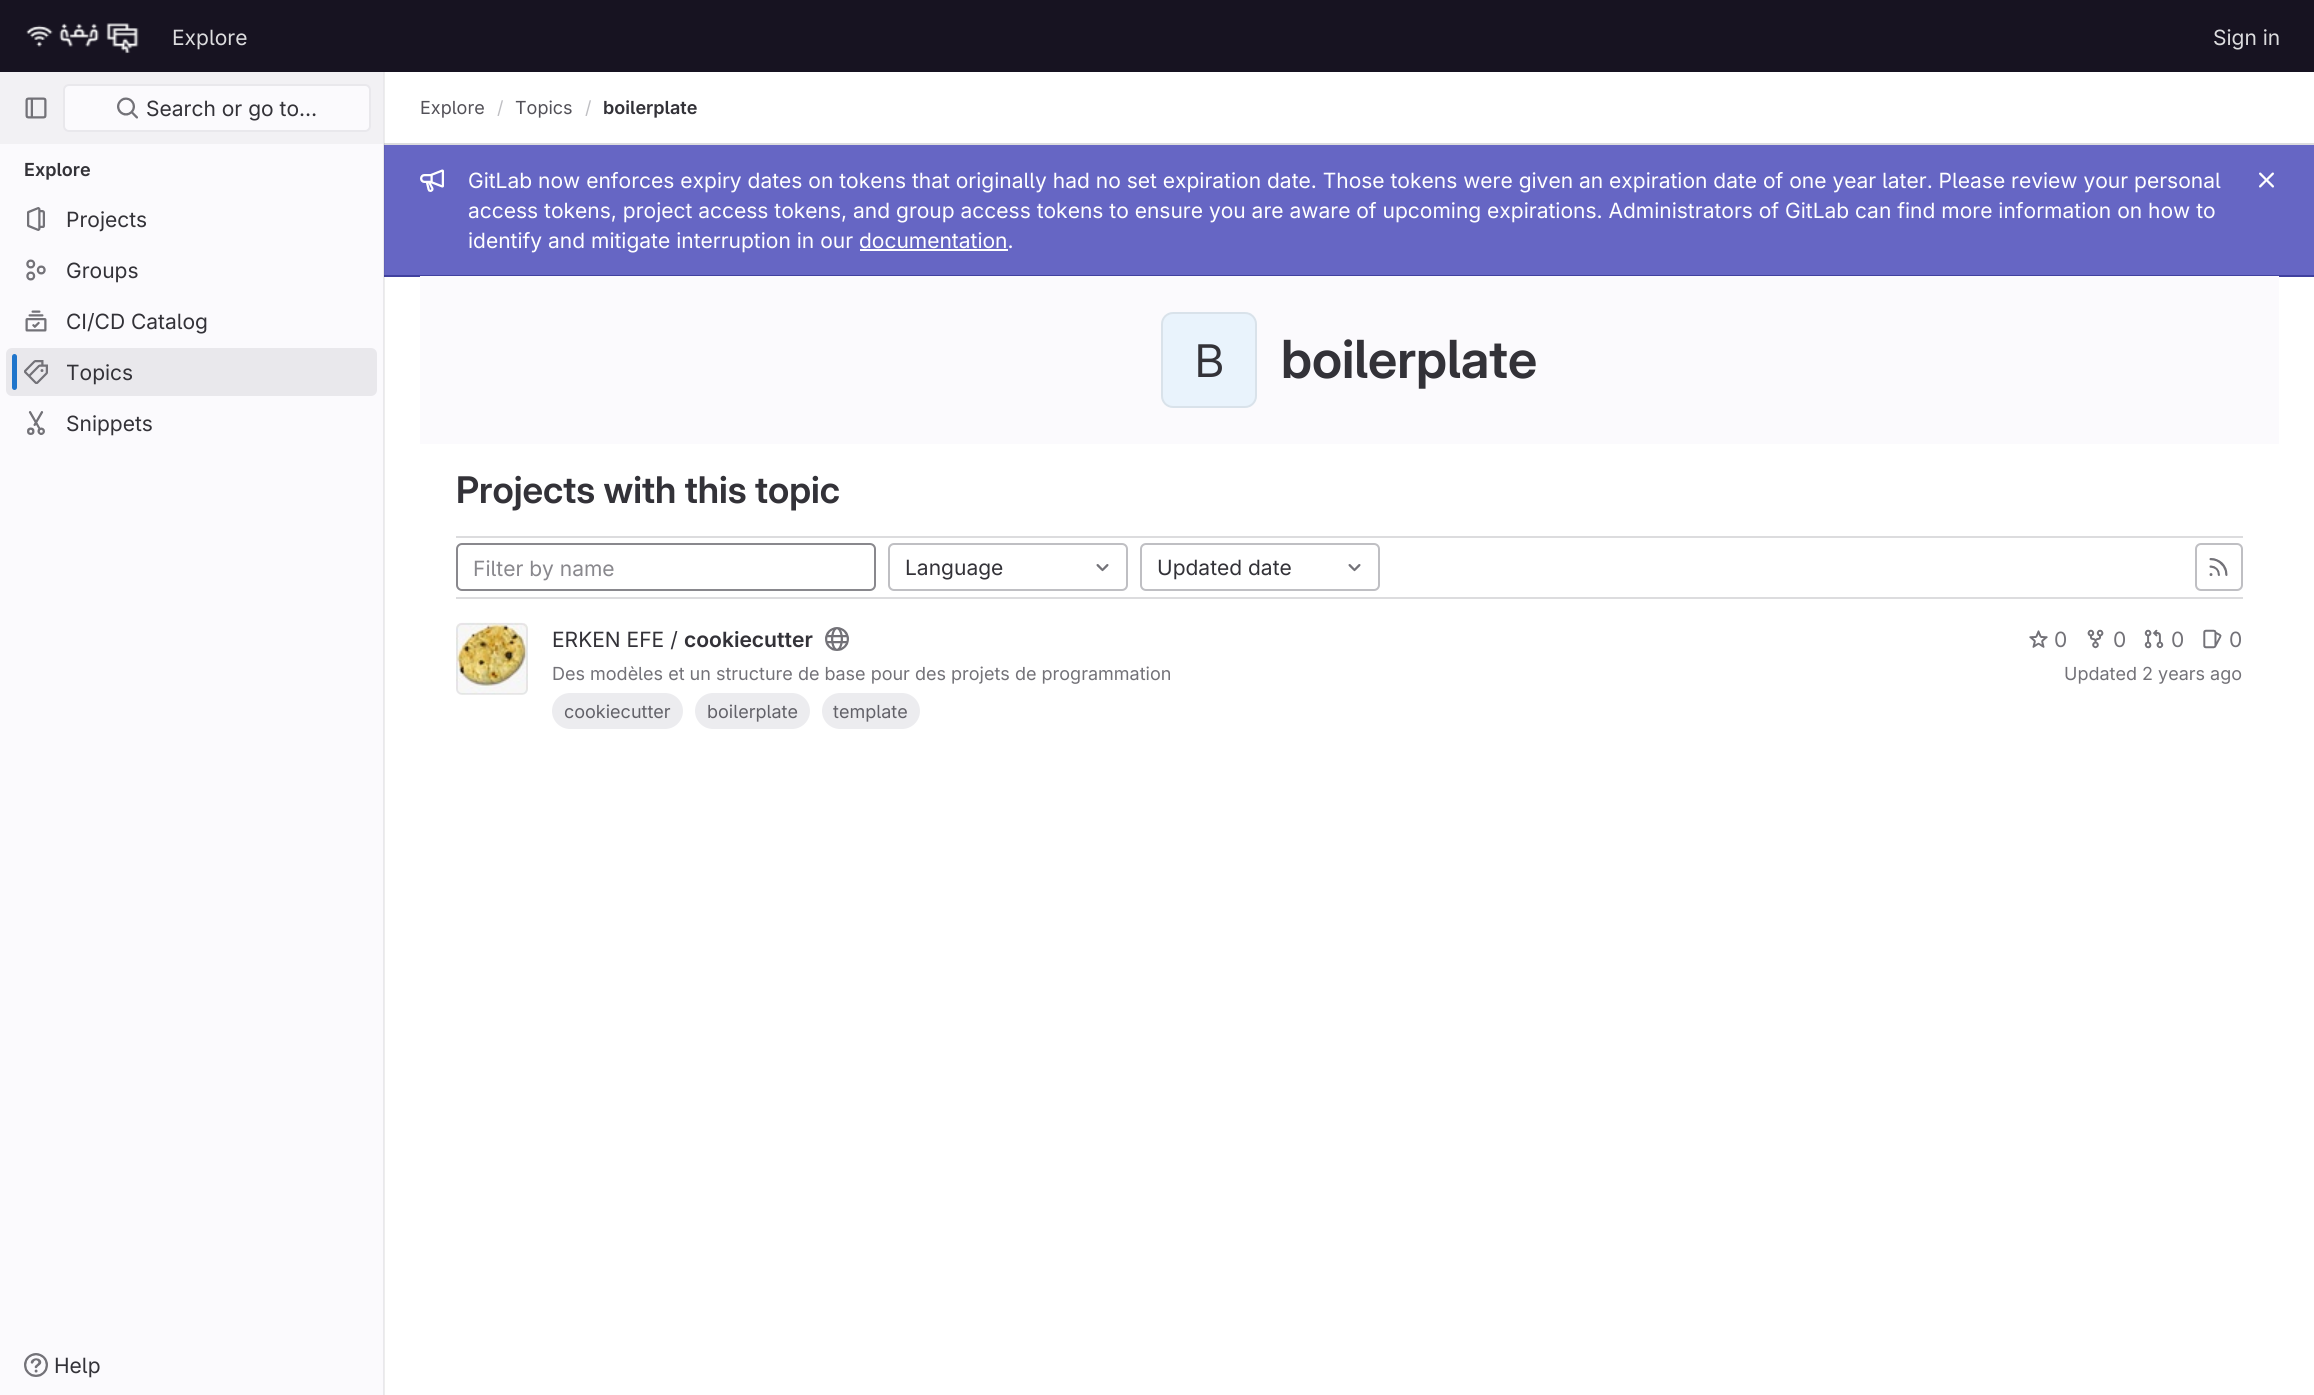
import math
import cairocffi as cairo

surface = cairo.ImageSurface(cairo.FORMAT_RGB24, 2314, 1395)
ctx = cairo.Context(surface)
options = cairo.FontOptions()
options.set_hint_metrics(cairo.HINT_METRICS_OFF)
options.set_hint_style(cairo.HINT_STYLE_NONE)
ctx.set_font_options(options)
ctx.set_miter_limit(4)


def rgb(r, g, b):
    ctx.set_source_rgb(r / 255, g / 255, b / 255)


def face(family, size, italic, bold):
    ctx.select_font_face(family, cairo.FONT_SLANT_ITALIC if italic else cairo.FONT_SLANT_NORMAL, cairo.FONT_WEIGHT_BOLD if bold else cairo.FONT_WEIGHT_NORMAL)
    ctx.set_font_size(size)


def label(x, y, s):
    ctx.move_to(x, y)
    ctx.show_text(s)


def rect(x, y, w, h):
    ctx.rectangle(x, y, w, h)
    ctx.fill()


def rrect(x, y, w, h, r):
    ctx.new_sub_path()
    for i, (u, v) in enumerate([(x + w - r, y + h - r), (x + r, y + h - r), (x + r, y + r), (x + w - r, y + r)]):
        ctx.arc(u, v, r, i * math.pi / 2, (i + 1) * math.pi / 2)
    ctx.close_path()


def image(path, x, y, w, h):
    ctx.save()
    ctx.set_source_surface(cairo.ImageSurface.create_from_png(path), x, y)
    ctx.rectangle(x, y, w, h)
    ctx.fill()
    ctx.restore()


rgb(255, 255, 255)
ctx.paint()
rgb(237, 237, 237)
rect(384, 72, 1, 1323)
rgb(23, 19, 33)
rect(0, 0, 2314, 72)
image('image0.png', 26, 23, 113, 31)
face('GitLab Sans', 21, 0, 0)
rgb(220, 220, 222)
label(172, 45, 'Explore')
label(2213, 45, 'Sign in')
rgb(251, 250, 253)
rect(0, 144, 383, 1251)
rgb(233, 232, 236)
rect(383, 72, 1, 1323)
rgb(242, 241, 244)
rect(0, 72, 383, 72)
image('image1.png', 25, 97, 22, 22)
rgb(251, 250, 253)
rrect(64, 85, 306, 46, 5)
ctx.fill_preserve()
rgb(233, 232, 236)
ctx.stroke()
image('image2.png', 117, 97, 21, 22)
rgb(51, 50, 56)
label(146, 116, 'Search or go to…')
face('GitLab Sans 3 SemiBold', 18, 0, 0)
label(24, 176, 'Explore')
image('image3.png', 27, 207, 18, 24)
face('GitLab Sans', 21, 0, 0)
label(66, 227, 'Projects')
image('image4.png', 26, 259, 20, 22)
label(66, 278, 'Groups')
image('image5.png', 25, 310, 22, 22)
label(66, 329, 'CI/CD Catalog')
rgb(233, 232, 236)
rrect(6, 348, 371, 48, 6)
ctx.fill()
rgb(31, 117, 203)
rrect(12, 354, 5, 36, 2.5)
ctx.fill()
image('image6.png', 24, 360, 24, 24)
rgb(51, 50, 56)
label(66, 380, 'Topics')
image('image7.png', 27, 411, 18, 24)
label(66, 431, 'Snippets')
image('image8.png', 24, 1353, 24, 24)
label(54, 1373, 'Help')
rgb(96, 96, 183)
rect(384, 144, 1, 132)
rgb(220, 220, 222)
rect(384, 143, 1930, 2)
rgb(205, 205, 207)
rect(384, 143, 1, 2)
face('GitLab Sans', 18, 0, 0)
rgb(83, 81, 88)
label(420, 114, 'Explore')
rgb(191, 191, 195)
label(497, 114, '/')
rgb(83, 81, 88)
label(515, 114, 'Topics')
rgb(191, 191, 195)
label(585, 114, '/')
face('GitLab Sans 3 SemiBold', 18, 0, 0)
rgb(51, 50, 56)
label(603, 114, 'boilerplate')
rgb(102, 102, 196)
rect(385, 145, 1929, 130)
rgb(65, 65, 159)
rect(384, 275, 1930, 2)
rgb(62, 62, 149)
rect(384, 275, 1, 2)
image('image9.png', 420, 169, 24, 23)
face('GitLab Sans', 21, 0, 0)
rgb(255, 255, 255)
label(468, 188, 'GitLab now enforces expiry dates on tokens that originally had no set expiration date. Those tokens were given an expiration date of one year later. Please review your personal')
label(468, 218, 'access tokens, project access tokens, and group access tokens to ensure you are aware of upcoming expirations. Administrators of GitLab can find more information on how to')
label(468, 248, 'identify and mitigate interruption in our documentation.')
rect(860, 249, 148, 2)
image('image10.png', 2259, 172, 15, 16)
rgb(251, 250, 253)
rect(420, 276, 1859, 168)
rgb(233, 243, 252)
rrect(1161, 312, 96, 96, 12)
ctx.fill()
rrect(1162, 313, 94, 94, 11)
ctx.set_source_rgba(0.122, 0.118, 0.141, 0.08)
ctx.stroke()
face('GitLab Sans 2', 45, 0, 0)
rgb(51, 50, 56)
label(1195, 377, 'B')
face('GitLab Sans SemiBold', 52.5, 0, 0)
label(1281, 378, 'boilerplate')
rgb(220, 220, 222)
rect(456, 536, 1787, 2)
face('GitLab Sans 2 SemiBold', 36.75, 0, 0)
rgb(51, 50, 56)
label(456, 503, 'Projects with this topic')
rgb(220, 220, 222)
rect(456, 597, 1787, 2)
rrect(457, 544, 418, 46, 5)
rgb(137, 136, 141)
ctx.stroke()
face('GitLab Sans', 21, 0, 0)
label(473, 576, 'Filter by name')
rrect(889, 544, 238, 46, 5)
rgb(191, 191, 195)
ctx.stroke()
rgb(51, 50, 56)
label(905, 575, 'Language')
image('image11.png', 1096, 564, 13, 8)
rrect(1141, 544, 238, 46, 5)
rgb(191, 191, 195)
ctx.stroke()
rgb(51, 50, 56)
label(1157, 575, 'Updated date')
image('image11.png', 1348, 564, 13, 8)
rrect(2196, 544, 46, 46, 5)
rgb(191, 191, 195)
ctx.stroke()
image('image12.png', 2209, 558, 19, 18)
image('image13.png', 456, 622, 72, 73)
rrect(457, 624, 70, 70, 5)
ctx.set_source_rgba(0.122, 0.118, 0.141, 0.08)
ctx.stroke()
rgb(51, 50, 56)
label(552, 647, 'ERKEN EFE /')
face('GitLab Sans 3 SemiBold', 21, 0, 0)
label(684, 647, 'cookiecutter')
image('image14.png', 825, 627, 24, 24)
face('GitLab Sans', 18, 0, 0)
rgb(115, 114, 120)
label(552, 680, 'Des modèles et un structure de base pour des projets de programmation')
rgb(236, 236, 239)
rrect(552, 693, 131, 36, 18)
ctx.fill()
rgb(98, 97, 104)
label(564, 718, 'cookiecutter')
rgb(236, 236, 239)
rrect(695, 693, 115, 36, 18)
ctx.fill()
rgb(98, 97, 104)
label(707, 718, 'boilerplate')
rgb(236, 236, 239)
rrect(822, 693, 98, 36, 18)
ctx.fill()
rgb(98, 97, 104)
label(833, 718, 'template')
image('image15.png', 2029, 630, 19, 18)
face('GitLab Sans', 21, 0, 0)
rgb(115, 114, 120)
label(2054, 647, '0')
image('image16.png', 2087, 629, 17, 20)
label(2113, 647, '0')
image('image17.png', 2144, 629, 20, 20)
label(2171, 647, '0')
image('image18.png', 2203, 629, 19, 20)
label(2229, 647, '0')
face('GitLab Sans', 18, 0, 0)
label(2064, 680, 'Updated 2 years ago')
surface.write_to_png('render.png')
